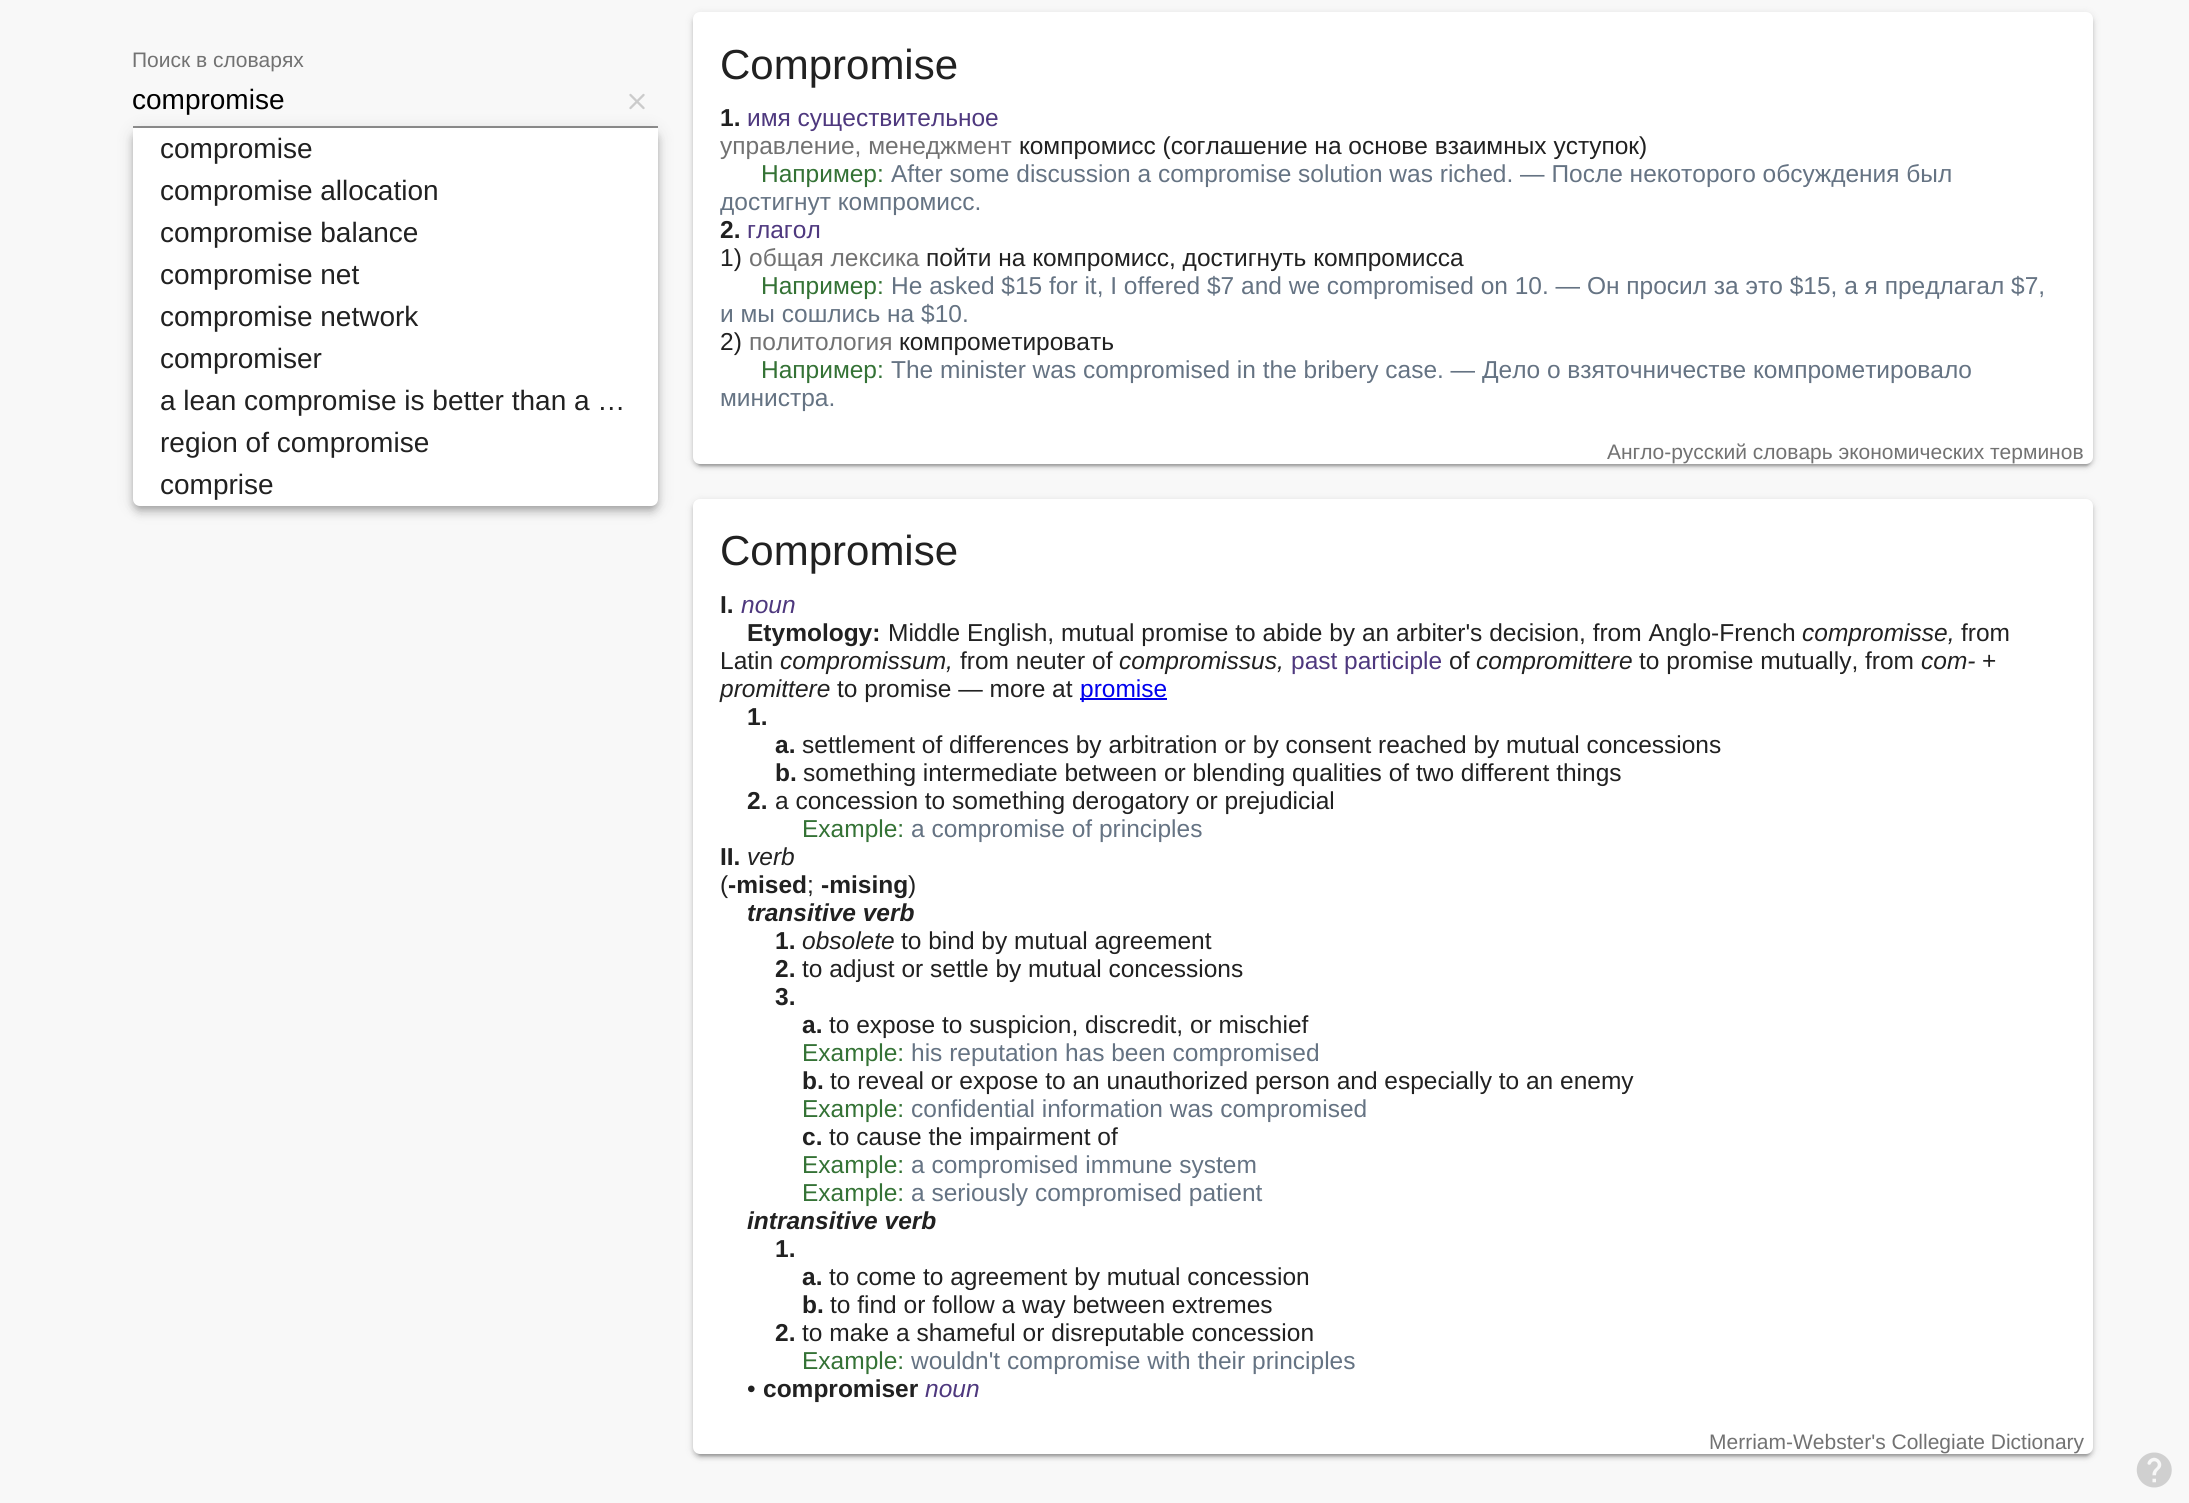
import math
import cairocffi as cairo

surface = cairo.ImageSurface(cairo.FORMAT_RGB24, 2189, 1503)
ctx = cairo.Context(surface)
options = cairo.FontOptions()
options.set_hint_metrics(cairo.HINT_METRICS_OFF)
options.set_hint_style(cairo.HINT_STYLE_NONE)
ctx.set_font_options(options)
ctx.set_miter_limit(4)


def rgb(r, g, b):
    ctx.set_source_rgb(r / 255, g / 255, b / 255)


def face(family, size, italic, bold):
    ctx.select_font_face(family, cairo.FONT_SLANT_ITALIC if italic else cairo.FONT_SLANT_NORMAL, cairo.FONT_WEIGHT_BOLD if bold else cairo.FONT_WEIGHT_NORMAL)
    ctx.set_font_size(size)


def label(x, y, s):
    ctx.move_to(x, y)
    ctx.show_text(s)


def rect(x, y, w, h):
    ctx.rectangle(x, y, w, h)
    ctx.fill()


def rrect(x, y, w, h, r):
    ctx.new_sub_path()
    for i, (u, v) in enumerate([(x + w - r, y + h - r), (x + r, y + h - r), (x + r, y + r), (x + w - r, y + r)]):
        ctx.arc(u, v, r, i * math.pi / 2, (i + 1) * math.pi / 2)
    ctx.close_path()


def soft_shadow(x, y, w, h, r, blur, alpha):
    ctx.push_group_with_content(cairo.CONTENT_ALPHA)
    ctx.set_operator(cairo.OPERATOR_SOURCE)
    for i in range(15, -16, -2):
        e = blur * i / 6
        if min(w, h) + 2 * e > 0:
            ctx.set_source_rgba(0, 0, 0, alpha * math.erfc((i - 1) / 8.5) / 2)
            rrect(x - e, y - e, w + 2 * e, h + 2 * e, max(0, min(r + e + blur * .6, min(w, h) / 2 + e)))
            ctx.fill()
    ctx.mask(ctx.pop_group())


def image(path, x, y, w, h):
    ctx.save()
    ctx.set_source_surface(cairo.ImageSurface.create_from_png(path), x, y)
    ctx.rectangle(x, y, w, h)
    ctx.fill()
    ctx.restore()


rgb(248, 248, 248)
ctx.paint()
face('Liberation Sans', 21, 0, 0)
rgb(114, 114, 114)
label(132, 67, 'Поиск в словарях')
face('Liberation Sans', 28, 0, 0)
rgb(0, 0, 0)
label(132, 109, 'compromise')
image('image0.png', 629, 93, 16, 17)
rgb(144, 144, 144)
rect(133, 126, 525, 2)
rgb(0, 0, 0)
soft_shadow(693, 14, 1400, 452, 7, 4.5, 0.12)
soft_shadow(693, 16, 1400, 451, 7, 2, 0.14)
soft_shadow(697, 21, 1393, 445, 4, 1, 0.2)
rgb(255, 255, 255)
rrect(693, 12, 1400, 452, 7)
ctx.fill()
face('Liberation Sans', 42, 0, 0)
rgb(33, 33, 33)
label(720, 79, 'Compromise')
face('Liberation Sans', 24.5, 0, 1)
label(720, 126, '1.')
face('Liberation Sans', 24.5, 0, 0)
rgb(78, 56, 126)
label(747, 126, 'имя существительное')
rgb(114, 114, 114)
label(720, 154, 'управление, менеджмент')
rgb(33, 33, 33)
label(1019, 154, 'компромисс (соглашение на основе взаимных уступок)')
rgb(52, 114, 53)
label(761, 182, 'Например:')
rgb(101, 115, 131)
label(891, 182, 'After some discussion a compromise solution was riched. — После некоторого обсуждения был')
label(720, 210, 'достигнут компромисс.')
face('Liberation Sans', 24.5, 0, 1)
rgb(33, 33, 33)
label(720, 238, '2.')
face('Liberation Sans', 24.5, 0, 0)
rgb(78, 56, 126)
label(747, 238, 'глагол')
rgb(33, 33, 33)
label(720, 266, '1)')
rgb(114, 114, 114)
label(749, 266, 'общая лексика')
rgb(33, 33, 33)
label(926, 266, 'пойти на компромисс, достигнуть компромисса')
rgb(52, 114, 53)
label(761, 294, 'Например:')
rgb(101, 115, 131)
label(891, 294, 'He asked $15 for it, I offered $7 and we compromised on 10. — Он просил за это $15, а я предлагал $7,')
label(720, 322, 'и мы сошлись на $10.')
rgb(33, 33, 33)
label(720, 350, '2)')
rgb(114, 114, 114)
label(749, 350, 'политология')
rgb(33, 33, 33)
label(899, 350, 'компрометировать')
rgb(52, 114, 53)
label(761, 378, 'Например:')
rgb(101, 115, 131)
label(891, 378, 'The minister was compromised in the bribery case. — Дело о взяточничестве компрометировало')
label(720, 406, 'министра.')
face('Liberation Sans', 21, 0, 0)
rgb(114, 114, 114)
label(1607, 459, 'Англо-русский словарь экономических терминов')
rgb(0, 0, 0)
soft_shadow(693, 501, 1400, 955, 7, 4.5, 0.12)
soft_shadow(693, 502, 1400, 956, 7, 2, 0.14)
soft_shadow(697, 508, 1393, 948, 4, 1, 0.2)
rgb(255, 255, 255)
rrect(693, 499, 1400, 955, 7)
ctx.fill()
face('Liberation Sans', 42, 0, 0)
rgb(33, 33, 33)
label(720, 565, 'Compromise')
face('Liberation Sans', 24.5, 0, 1)
label(720, 613, 'I.')
face('Liberation Sans', 24.5, 1, 0)
rgb(78, 56, 126)
label(741, 613, 'noun')
face('Liberation Sans', 24.5, 0, 1)
rgb(33, 33, 33)
label(747, 641, 'Etymology:')
face('Liberation Sans', 24.5, 0, 0)
label(888, 641, 'Middle English, mutual promise to abide by an arbiter\'s decision, from Anglo-French')
face('Liberation Sans', 24.5, 1, 0)
label(1802, 641, 'compromisse,')
face('Liberation Sans', 24.5, 0, 0)
label(1961, 641, 'from')
label(720, 669, 'Latin')
face('Liberation Sans', 24.5, 1, 0)
label(780, 669, 'compromissum,')
face('Liberation Sans', 24.5, 0, 0)
label(960, 669, 'from neuter of')
face('Liberation Sans', 24.5, 1, 0)
label(1119, 669, 'compromissus,')
face('Liberation Sans', 24.5, 0, 0)
rgb(78, 56, 126)
label(1291, 669, 'past participle')
rgb(33, 33, 33)
label(1449, 669, 'of')
face('Liberation Sans', 24.5, 1, 0)
label(1476, 669, 'compromittere')
face('Liberation Sans', 24.5, 0, 0)
label(1639, 669, 'to promise mutually, from')
face('Liberation Sans', 24.5, 1, 0)
label(1921, 669, 'com-')
face('Liberation Sans', 24.5, 0, 0)
label(1982, 669, '+')
face('Liberation Sans', 24.5, 1, 0)
label(720, 697, 'promittere')
face('Liberation Sans', 24.5, 0, 0)
label(837, 697, 'to promise — more at')
rgb(0, 0, 238)
rect(1080, 698, 87, 2)
label(1080, 697, 'promise')
face('Liberation Sans', 24.5, 0, 1)
rgb(33, 33, 33)
label(747, 725, '1.')
label(775, 753, 'a.')
face('Liberation Sans', 24.5, 0, 0)
label(802, 753, 'settlement of differences by arbitration or by consent reached by mutual concessions')
face('Liberation Sans', 24.5, 0, 1)
label(775, 781, 'b.')
face('Liberation Sans', 24.5, 0, 0)
label(803, 781, 'something intermediate between or blending qualities of two different things')
face('Liberation Sans', 24.5, 0, 1)
label(747, 809, '2.')
face('Liberation Sans', 24.5, 0, 0)
label(775, 809, 'a concession to something derogatory or prejudicial')
rgb(52, 114, 53)
label(802, 837, 'Example:')
rgb(101, 115, 131)
label(911, 837, 'a compromise of principles')
face('Liberation Sans', 24.5, 0, 1)
rgb(33, 33, 33)
label(720, 865, 'II.')
face('Liberation Sans', 24.5, 1, 0)
label(747, 865, 'verb')
face('Liberation Sans', 24.5, 0, 0)
label(720, 893, '(')
face('Liberation Sans', 24.5, 0, 1)
label(728, 893, '-mised')
face('Liberation Sans', 24.5, 0, 0)
label(807, 893, ';')
face('Liberation Sans', 24.5, 0, 1)
label(821, 893, '-mising')
face('Liberation Sans', 24.5, 0, 0)
label(908, 893, ')')
face('Liberation Sans', 24.5, 1, 1)
label(747, 921, 'transitive verb')
face('Liberation Sans', 24.5, 0, 1)
label(775, 949, '1.')
face('Liberation Sans', 24.5, 1, 0)
label(802, 949, 'obsolete')
face('Liberation Sans', 24.5, 0, 0)
label(901, 949, 'to bind by mutual agreement')
face('Liberation Sans', 24.5, 0, 1)
label(775, 977, '2.')
face('Liberation Sans', 24.5, 0, 0)
label(802, 977, 'to adjust or settle by mutual concessions')
face('Liberation Sans', 24.5, 0, 1)
label(775, 1005, '3.')
label(802, 1033, 'a.')
face('Liberation Sans', 24.5, 0, 0)
label(829, 1033, 'to expose to suspicion, discredit, or mischief')
rgb(52, 114, 53)
label(802, 1061, 'Example:')
rgb(101, 115, 131)
label(911, 1061, 'his reputation has been compromised')
face('Liberation Sans', 24.5, 0, 1)
rgb(33, 33, 33)
label(802, 1089, 'b.')
face('Liberation Sans', 24.5, 0, 0)
label(830, 1089, 'to reveal or expose to an unauthorized person and especially to an enemy')
rgb(52, 114, 53)
label(802, 1117, 'Example:')
rgb(101, 115, 131)
label(911, 1117, 'confidential information was compromised')
face('Liberation Sans', 24.5, 0, 1)
rgb(33, 33, 33)
label(802, 1145, 'c.')
face('Liberation Sans', 24.5, 0, 0)
label(829, 1145, 'to cause the impairment of')
rgb(52, 114, 53)
label(802, 1173, 'Example:')
rgb(101, 115, 131)
label(911, 1173, 'a compromised immune system')
rgb(52, 114, 53)
label(802, 1201, 'Example:')
rgb(101, 115, 131)
label(911, 1201, 'a seriously compromised patient')
face('Liberation Sans', 24.5, 1, 1)
rgb(33, 33, 33)
label(747, 1229, 'intransitive verb')
face('Liberation Sans', 24.5, 0, 1)
label(775, 1257, '1.')
label(802, 1285, 'a.')
face('Liberation Sans', 24.5, 0, 0)
label(829, 1285, 'to come to agreement by mutual concession')
face('Liberation Sans', 24.5, 0, 1)
label(802, 1313, 'b.')
face('Liberation Sans', 24.5, 0, 0)
label(830, 1313, 'to find or follow a way between extremes')
face('Liberation Sans', 24.5, 0, 1)
label(775, 1341, '2.')
face('Liberation Sans', 24.5, 0, 0)
label(802, 1341, 'to make a shameful or disreputable concession')
rgb(52, 114, 53)
label(802, 1369, 'Example:')
rgb(101, 115, 131)
label(911, 1369, 'wouldn\'t compromise with their principles')
rgb(33, 33, 33)
label(747, 1397, '•')
face('Liberation Sans', 24.5, 0, 1)
label(763, 1397, 'compromiser')
face('Liberation Sans', 24.5, 1, 0)
rgb(78, 56, 126)
label(925, 1397, 'noun')
face('Liberation Sans', 21, 0, 0)
rgb(114, 114, 114)
label(1709, 1449, 'Merriam-Webster\'s Collegiate Dictionary')
image('image1.png', 2136, 1452, 36, 36)
rgb(0, 0, 0)
soft_shadow(133, 130, 525, 378, 7, 9, 0.12)
soft_shadow(133, 135, 525, 378, 7, 4.5, 0.14)
soft_shadow(135, 133, 521, 375, 5, 3.5, 0.2)
rgb(255, 255, 255)
ctx.new_path()
ctx.move_to(133, 128)
ctx.line_to(658, 128)
ctx.line_to(658, 499)
ctx.curve_to(658, 503, 655, 506, 651, 506)
ctx.line_to(140, 506)
ctx.curve_to(136, 506, 133, 503, 133, 499)
ctx.close_path()
ctx.fill()
face('Liberation Sans', 28, 0, 0)
rgb(33, 33, 33)
label(160, 158, 'compromise')
label(160, 200, 'compromise allocation')
label(160, 242, 'compromise balance')
label(160, 284, 'compromise net')
label(160, 326, 'compromise network')
label(160, 368, 'compromiser')
label(160, 410, 'a lean compromise is better than a …')
label(160, 452, 'region of compromise')
label(160, 494, 'comprise')
surface.write_to_png('render.png')
